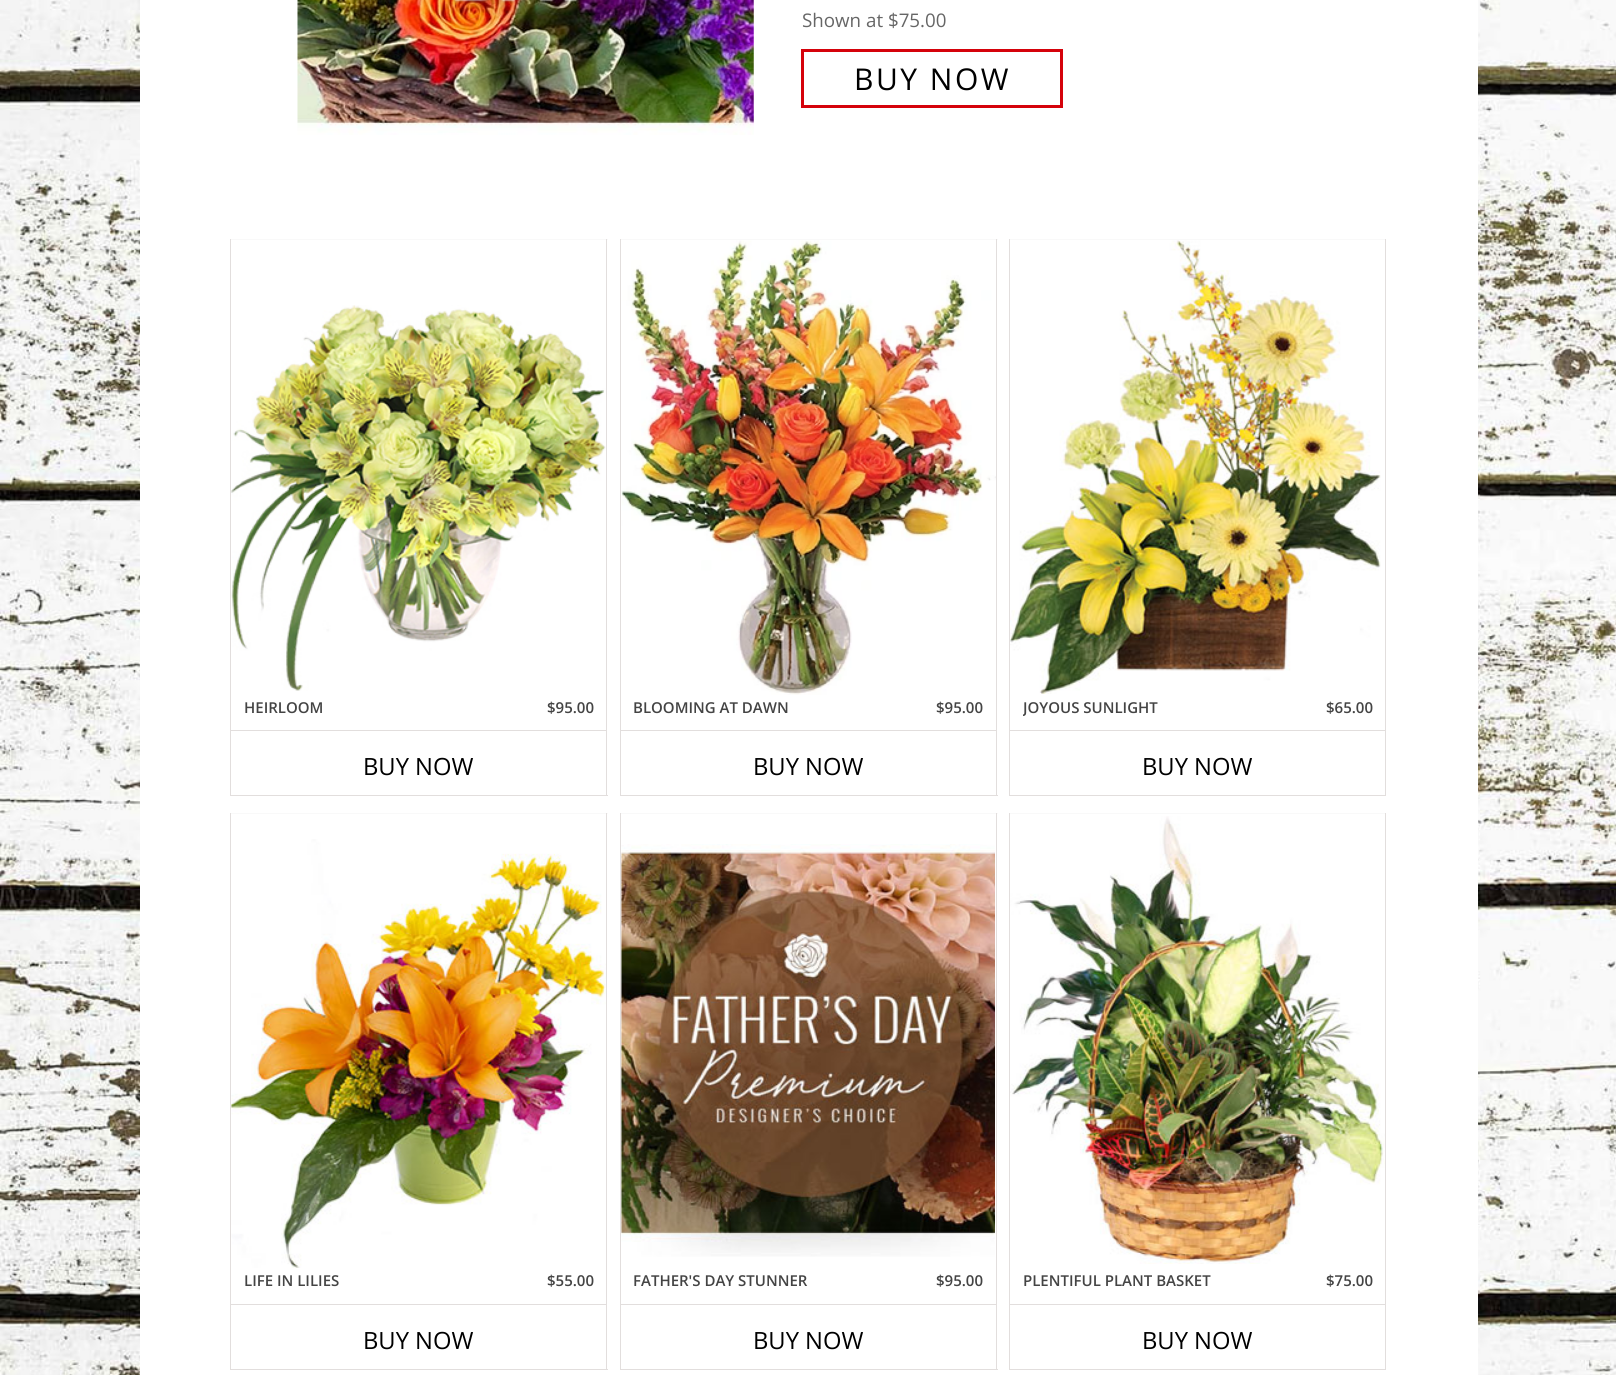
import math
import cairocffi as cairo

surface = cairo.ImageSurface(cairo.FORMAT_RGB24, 1616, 1375)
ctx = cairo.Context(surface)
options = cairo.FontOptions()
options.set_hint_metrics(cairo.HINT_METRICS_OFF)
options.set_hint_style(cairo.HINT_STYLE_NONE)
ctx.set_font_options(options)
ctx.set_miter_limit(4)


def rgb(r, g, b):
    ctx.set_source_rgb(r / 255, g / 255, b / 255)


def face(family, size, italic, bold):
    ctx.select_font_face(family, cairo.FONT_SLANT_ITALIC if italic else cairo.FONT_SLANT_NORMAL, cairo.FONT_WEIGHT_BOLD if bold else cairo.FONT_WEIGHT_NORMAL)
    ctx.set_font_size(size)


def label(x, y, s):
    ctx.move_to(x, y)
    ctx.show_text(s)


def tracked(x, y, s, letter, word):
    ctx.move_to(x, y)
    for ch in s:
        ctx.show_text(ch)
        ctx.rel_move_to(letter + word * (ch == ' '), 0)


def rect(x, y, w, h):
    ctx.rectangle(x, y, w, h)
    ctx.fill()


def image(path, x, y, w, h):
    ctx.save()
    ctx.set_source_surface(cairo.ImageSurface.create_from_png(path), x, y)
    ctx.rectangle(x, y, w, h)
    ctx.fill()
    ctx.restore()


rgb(255, 255, 255)
ctx.paint()
image('image0.png', 0, 0, 1616, 1375)
rgb(255, 255, 255)
rect(140, 0, 1338, 1375)
image('image1.png', 297, 0, 457, 135)
face('Open Sans', 18.75, 0, 0)
rgb(102, 102, 102)
label(802, 27, 'Shown at $75.00')
ctx.rectangle(802.5, 50.5, 259, 56)
rgb(213, 2, 11)
ctx.set_line_width(3)
ctx.stroke()
face('Open Sans', 30, 0, 0)
rgb(0, 0, 0)
tracked(854, 90, 'BUY NOW', 2.5, 0)
rgb(249, 249, 249)
rect(230, 239, 378, 1)
rgb(226, 222, 221)
rect(606, 239, 1, 557)
rect(230, 795, 378, 1)
rect(230, 239, 1, 557)
image('image2.png', 231, 305, 375, 386)
face('Open Sans SemiBold', 15, 0, 0)
rgb(68, 68, 68)
label(244, 713, 'HEIRLOOM')
label(547, 713, '$95.00')
rgb(226, 222, 221)
rect(231, 730, 375, 1)
face('Open Sans', 23.75, 0, 0)
rgb(0, 0, 0)
label(363, 775, 'BUY NOW')
rgb(249, 249, 249)
rect(620, 239, 378, 1)
rgb(226, 222, 221)
rect(996, 239, 1, 557)
rect(620, 795, 378, 1)
rect(620, 239, 1, 557)
image('image3.png', 621, 240, 375, 455)
face('Open Sans SemiBold', 15, 0, 0)
rgb(68, 68, 68)
label(633, 713, 'BLOOMING AT DAWN')
label(936, 713, '$95.00')
rgb(226, 222, 221)
rect(621, 730, 375, 1)
face('Open Sans', 23.75, 0, 0)
rgb(0, 0, 0)
label(753, 775, 'BUY NOW')
rgb(249, 249, 249)
rect(1009, 239, 377, 1)
rgb(226, 222, 221)
rect(1385, 239, 1, 557)
rect(1009, 795, 377, 1)
rect(1009, 239, 1, 557)
image('image4.png', 1010, 240, 371, 454)
ctx.save()
ctx.rectangle(1023, 696, 235, 22)
ctx.clip()
face('Open Sans SemiBold', 15, 0, 0)
rgb(68, 68, 68)
label(1023, 713, 'JOYOUS SUNLIGHT')
ctx.restore()
face('Open Sans SemiBold', 15, 0, 0)
rgb(68, 68, 68)
label(1326, 713, '$65.00')
rgb(226, 222, 221)
rect(1010, 730, 375, 1)
face('Open Sans', 23.75, 0, 0)
rgb(0, 0, 0)
label(1142, 775, 'BUY NOW')
rgb(249, 249, 249)
rect(230, 813, 378, 1)
rgb(226, 222, 221)
rect(606, 813, 1, 557)
rect(230, 1369, 378, 1)
rect(230, 813, 1, 557)
image('image5.png', 231, 839, 375, 429)
face('Open Sans SemiBold', 15, 0, 0)
rgb(68, 68, 68)
label(244, 1286, 'LIFE IN LILIES')
label(547, 1286, '$55.00')
rgb(226, 222, 221)
rect(231, 1304, 375, 1)
face('Open Sans', 23.75, 0, 0)
rgb(0, 0, 0)
label(363, 1349, 'BUY NOW')
rgb(249, 249, 249)
rect(620, 813, 378, 1)
rgb(226, 222, 221)
rect(996, 813, 1, 557)
rect(620, 1369, 378, 1)
rect(620, 813, 1, 557)
image('image6.png', 621, 844, 374, 413)
face('Open Sans SemiBold', 15, 0, 0)
rgb(68, 68, 68)
label(633, 1286, 'FATHER\'S DAY STUNNER')
label(936, 1286, '$95.00')
rgb(226, 222, 221)
rect(621, 1304, 375, 1)
face('Open Sans', 23.75, 0, 0)
rgb(0, 0, 0)
label(753, 1349, 'BUY NOW')
rgb(249, 249, 249)
rect(1009, 813, 377, 1)
rgb(226, 222, 221)
rect(1385, 813, 1, 557)
rect(1009, 1369, 377, 1)
rect(1009, 813, 1, 557)
image('image7.png', 1010, 816, 375, 448)
face('Open Sans SemiBold', 15, 0, 0)
rgb(68, 68, 68)
label(1023, 1286, 'PLENTIFUL PLANT BASKET')
label(1326, 1286, '$75.00')
rgb(226, 222, 221)
rect(1010, 1304, 375, 1)
face('Open Sans', 23.75, 0, 0)
rgb(0, 0, 0)
label(1142, 1349, 'BUY NOW')
surface.write_to_png('render.png')
